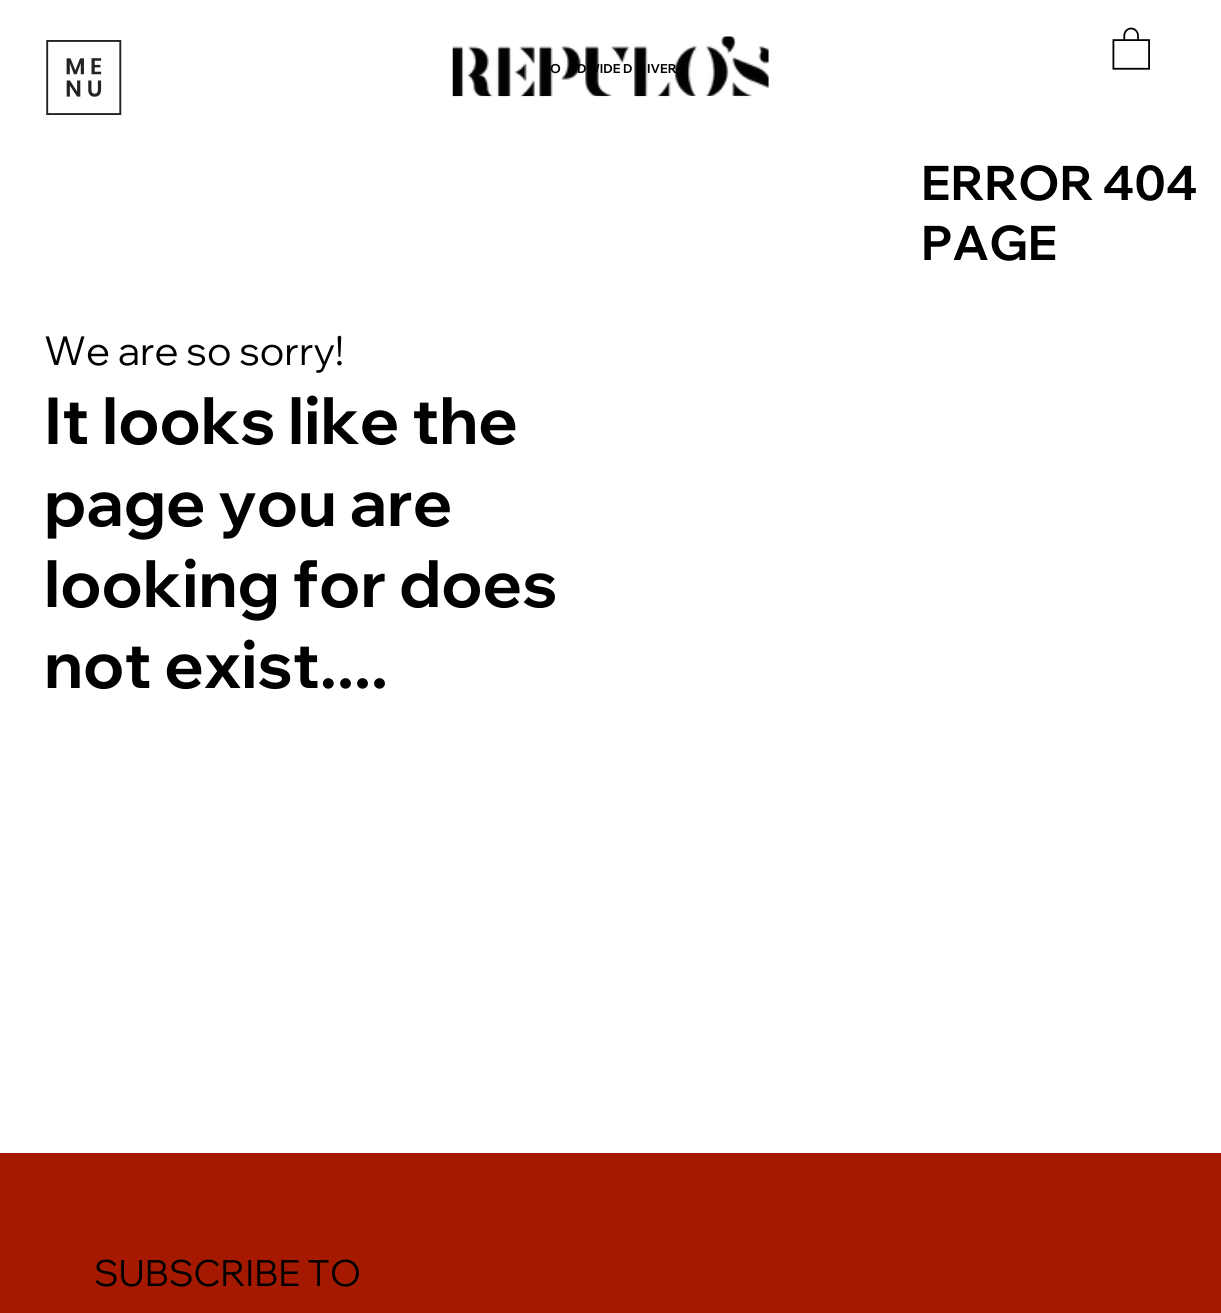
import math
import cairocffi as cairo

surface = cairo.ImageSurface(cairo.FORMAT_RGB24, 1221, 1313)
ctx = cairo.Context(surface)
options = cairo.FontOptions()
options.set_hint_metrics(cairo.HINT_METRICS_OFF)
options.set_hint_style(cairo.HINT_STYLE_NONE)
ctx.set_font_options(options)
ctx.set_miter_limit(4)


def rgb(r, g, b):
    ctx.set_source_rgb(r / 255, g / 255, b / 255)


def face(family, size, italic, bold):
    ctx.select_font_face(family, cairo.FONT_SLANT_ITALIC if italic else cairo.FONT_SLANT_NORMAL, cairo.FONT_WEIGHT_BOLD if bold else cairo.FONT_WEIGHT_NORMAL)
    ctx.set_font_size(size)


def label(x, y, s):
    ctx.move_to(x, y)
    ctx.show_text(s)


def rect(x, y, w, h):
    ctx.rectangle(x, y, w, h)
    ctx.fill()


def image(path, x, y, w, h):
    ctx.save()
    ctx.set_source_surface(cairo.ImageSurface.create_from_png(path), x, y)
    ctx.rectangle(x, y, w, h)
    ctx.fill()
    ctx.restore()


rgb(255, 255, 255)
ctx.paint()
image('image0.png', 46, 40, 76, 75)
image('image1.png', 452, 36, 317, 61)
image('image2.png', 1112, 27, 38, 43)
face('Wix Madefor Display', 12.5, 0, 1)
rgb(0, 0, 0)
label(550, 73, 'O')
label(577, 73, 'DWIDE D')
label(647, 73, 'IVER')
face('Wix Madefor Display', 47.75, 0, 1)
label(921, 200, 'ERROR 404')
label(921, 260, 'PAGE')
face('Wix Madefor Display', 40, 0, 0)
label(44, 365, 'We are so sorry!')
face('Wix Madefor Display', 65, 0, 1)
label(44, 444, 'It looks like the')
label(44, 526, 'page you are')
label(44, 607, 'looking for does')
label(44, 688, 'not exist....')
rgb(164, 25, 0)
rect(0, 1153, 1221, 160)
face('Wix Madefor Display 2', 36.25, 0, 0)
rgb(0, 0, 0)
label(94, 1286, 'SUBSCRIBE TO')
surface.write_to_png('render.png')
